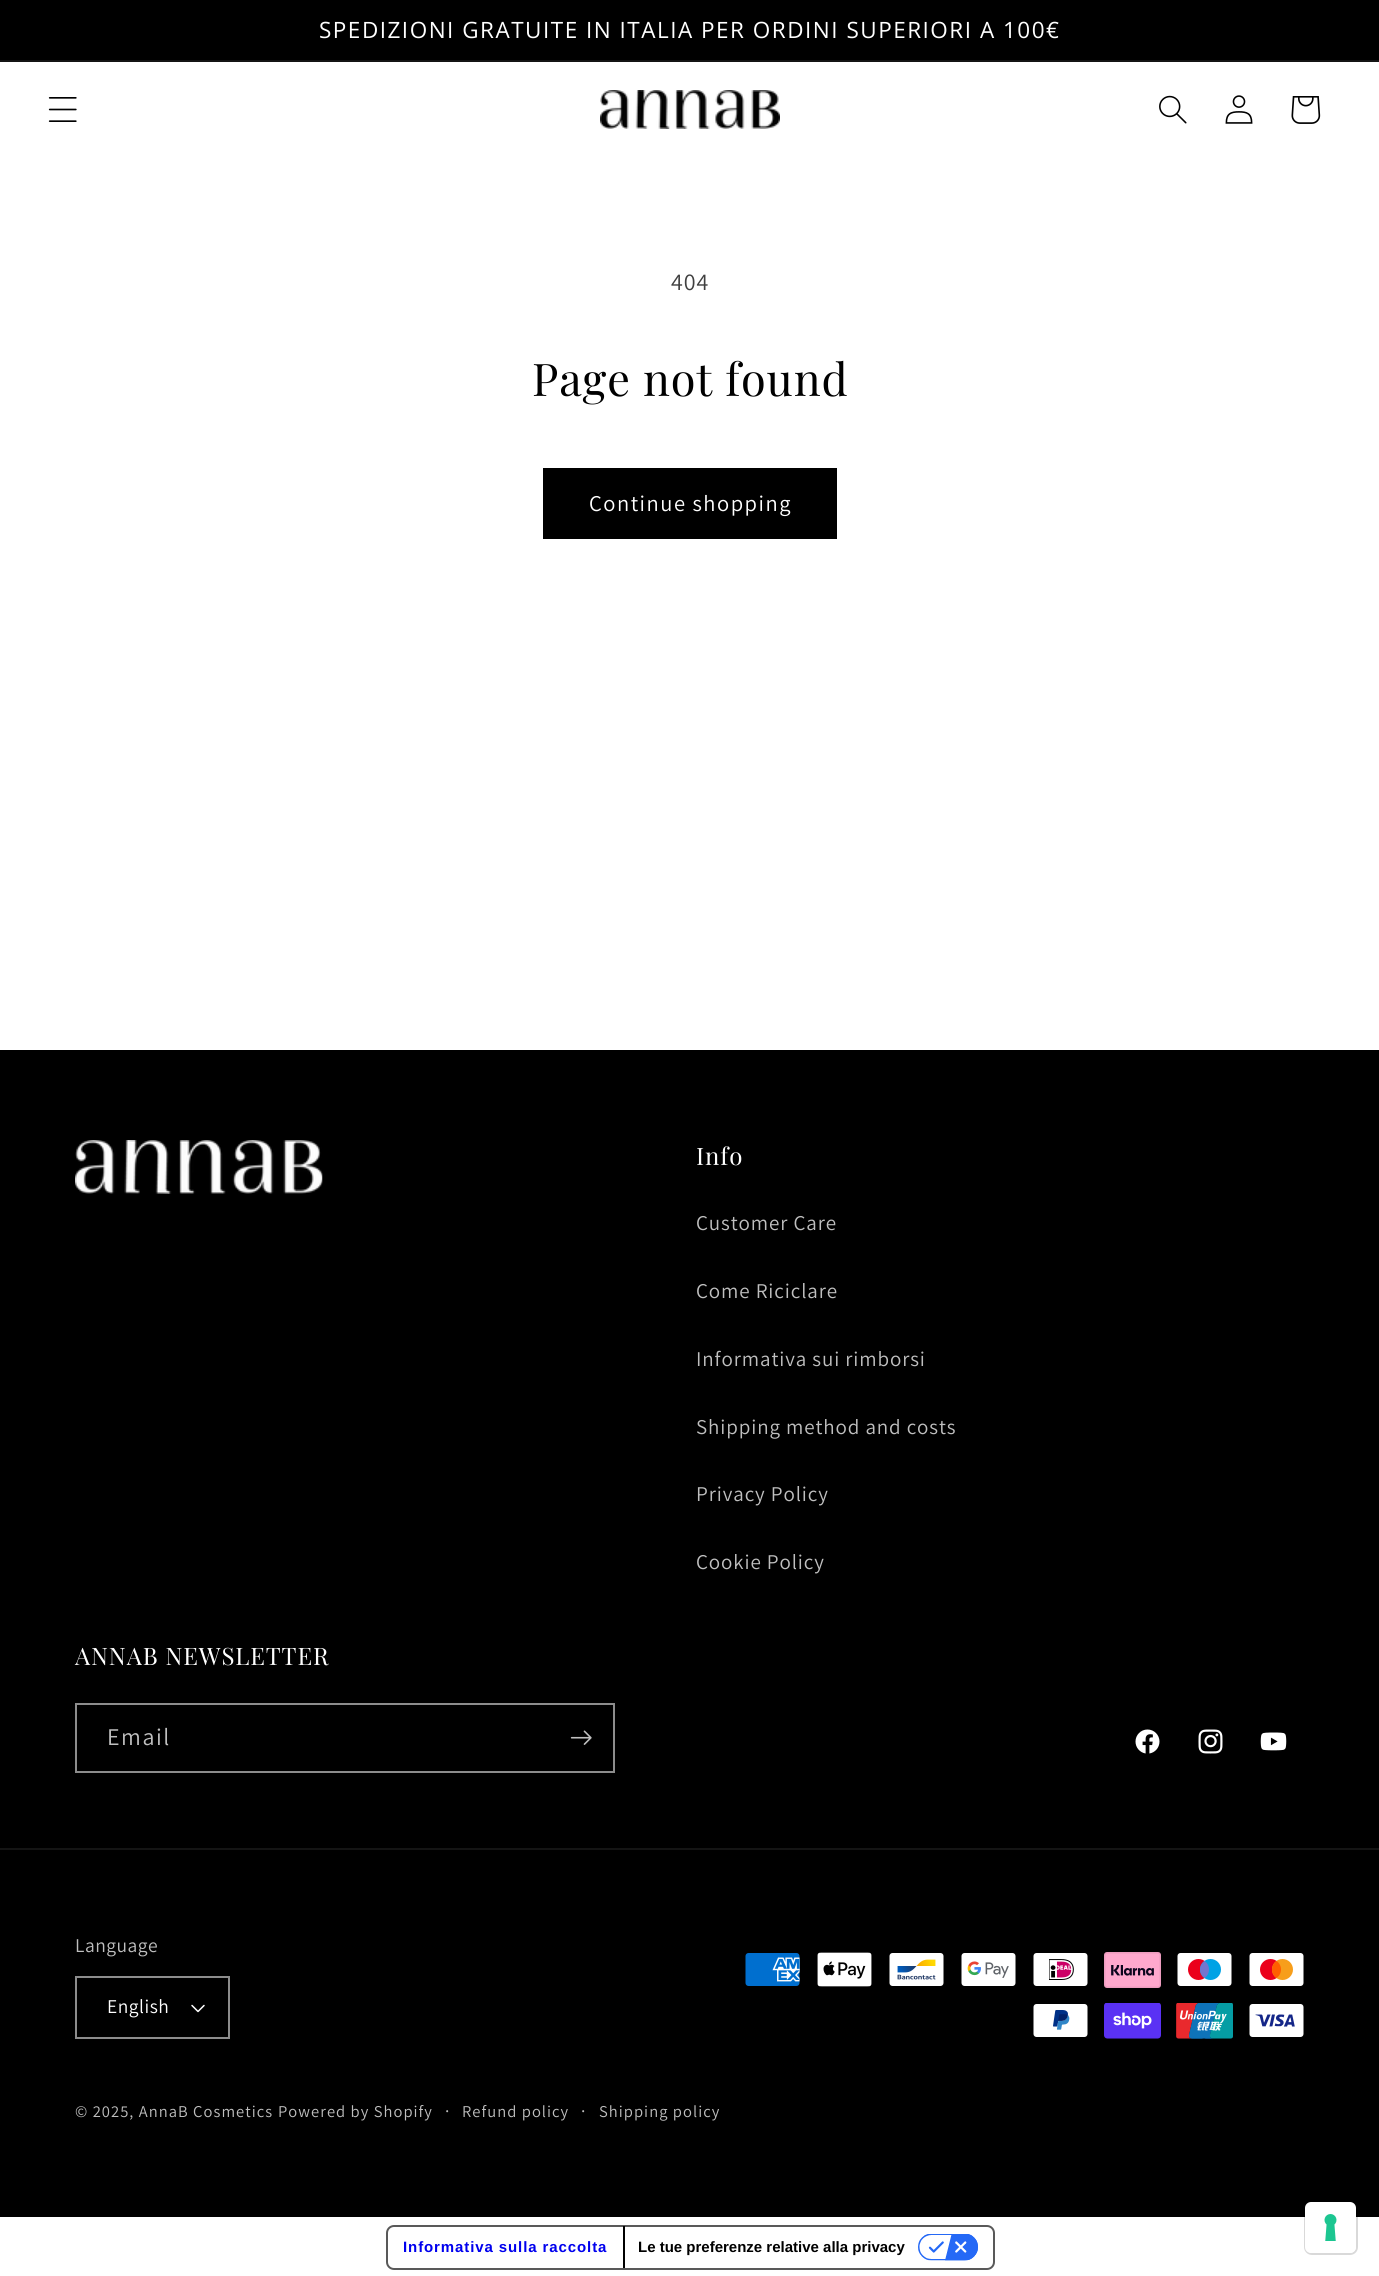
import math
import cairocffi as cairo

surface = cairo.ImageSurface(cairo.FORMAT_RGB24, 1379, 2276)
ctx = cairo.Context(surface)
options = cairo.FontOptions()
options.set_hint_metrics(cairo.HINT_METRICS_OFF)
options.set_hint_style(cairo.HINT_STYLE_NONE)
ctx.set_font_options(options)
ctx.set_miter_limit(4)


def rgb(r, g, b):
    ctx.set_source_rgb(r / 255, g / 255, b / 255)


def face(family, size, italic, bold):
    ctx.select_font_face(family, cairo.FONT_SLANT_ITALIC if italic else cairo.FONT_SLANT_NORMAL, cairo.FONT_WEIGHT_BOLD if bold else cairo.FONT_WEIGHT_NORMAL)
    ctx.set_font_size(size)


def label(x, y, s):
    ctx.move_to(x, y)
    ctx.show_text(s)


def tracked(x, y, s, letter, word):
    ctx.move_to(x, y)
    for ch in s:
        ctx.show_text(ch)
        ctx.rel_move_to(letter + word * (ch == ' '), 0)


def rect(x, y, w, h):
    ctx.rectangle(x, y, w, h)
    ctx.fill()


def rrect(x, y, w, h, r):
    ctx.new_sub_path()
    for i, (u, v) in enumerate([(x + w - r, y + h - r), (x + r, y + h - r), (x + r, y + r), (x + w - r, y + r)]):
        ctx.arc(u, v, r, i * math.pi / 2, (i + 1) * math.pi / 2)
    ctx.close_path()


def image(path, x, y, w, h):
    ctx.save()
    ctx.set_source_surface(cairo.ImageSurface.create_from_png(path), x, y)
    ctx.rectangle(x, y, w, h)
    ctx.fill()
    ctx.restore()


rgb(255, 255, 255)
ctx.paint()
rgb(0, 0, 0)
rect(0, 0, 1379, 60)
rgb(20, 20, 20)
rect(0, 60, 1379, 2)
face('Open Sans', 22.5, 0, 0)
rgb(255, 255, 255)
tracked(319, 38, 'SPEDIZIONI GRATUITE IN ITALIA PER ORDINI SUPERIORI A 100€', 1.5, 0)
image('image0.png', 48, 97, 29, 25)
image('image1.png', 600, 90, 180, 39)
image('image2.png', 1159, 95, 28, 29)
image('image3.png', 1225, 95, 28, 29)
image('image4.png', 1291, 96, 30, 28)
face('Assistant', 24, 0, 0)
rgb(64, 64, 64)
tracked(671, 290, '404', 0.9, 0)
face('Playfair Display', 45, 0, 0)
rgb(0, 0, 0)
tracked(532, 396, 'Page not found', 0.9, 0)
rect(543, 468, 294, 71)
face('Assistant', 22.5, 0, 0)
rgb(255, 255, 255)
tracked(589, 511, 'Continue shopping', 1.5, 0)
rgb(0, 0, 0)
rect(0, 1050, 1379, 1167)
image('image5.png', 75, 1140, 248, 54)
face('Playfair Display', 24, 0, 0)
rgb(255, 255, 255)
tracked(696, 1165, 'Info', 0.9, 0)
face('Assistant', 21, 0, 0)
rgb(191, 191, 191)
tracked(696, 1230, 'Customer Care', 0.9, 0)
tracked(696, 1298, 'Come Riciclare', 0.9, 0)
tracked(696, 1366, 'Informativa sui rimborsi', 0.9, 0)
tracked(696, 1434, 'Shipping method and costs', 0.9, 0)
tracked(696, 1501, 'Privacy Policy', 0.9, 0)
tracked(696, 1569, 'Cookie Policy', 0.9, 0)
face('Playfair Display', 24, 0, 0)
rgb(255, 255, 255)
tracked(75, 1665, 'ANNAB NEWSLETTER', 0.9, 0)
ctx.rectangle(76, 1704, 538, 68)
rgb(140, 140, 140)
ctx.stroke()
face('Assistant', 24, 0, 0)
rgb(191, 191, 191)
tracked(107, 1745, 'Email', 1.5, 0)
image('image6.png', 570, 1730, 22, 15)
image('image7.png', 1135, 1729, 25, 25)
image('image8.png', 1198, 1729, 25, 25)
image('image9.png', 1260, 1732, 27, 19)
rgb(20, 20, 20)
rect(0, 1848, 1379, 2)
face('Assistant', 19.5, 0, 0)
rgb(191, 191, 191)
tracked(75, 1952, 'Language', 0.5, 0)
image('image10.png', 191, 2004, 14, 9)
ctx.rectangle(76, 1977, 153, 61)
rgb(140, 140, 140)
ctx.stroke()
rgb(255, 255, 255)
tracked(107, 2013, 'English', 0.5, 0)
image('image11.png', 745, 1953, 55, 33)
image('image12.png', 817, 1952, 55, 35)
image('image13.png', 889, 1953, 55, 33)
image('image14.png', 961, 1953, 55, 33)
image('image15.png', 1033, 1953, 55, 33)
image('image16.png', 1104, 1952, 57, 36)
image('image17.png', 1177, 1953, 55, 33)
image('image18.png', 1249, 1953, 55, 33)
image('image19.png', 1033, 2004, 55, 33)
image('image20.png', 1104, 2003, 57, 36)
image('image21.png', 1176, 2003, 57, 36)
image('image22.png', 1249, 2004, 55, 33)
face('Assistant', 16.5, 0, 0)
rgb(191, 191, 191)
tracked(75, 2117, '© 2025, AnnaB Cosmetics', 1.05, 0)
tracked(278, 2117, 'Powered by Shopify', 1.05, 0)
face('Assistant', 18, 0, 0)
tracked(445, 2117, '·', 1.05, 0)
face('Assistant', 16.5, 0, 0)
tracked(462, 2117, 'Refund policy', 1.05, 0)
face('Assistant', 18, 0, 0)
tracked(581, 2117, '·', 1.05, 0)
face('Assistant', 16.5, 0, 0)
tracked(599, 2117, 'Shipping policy', 1.05, 0)
rrect(387, 2226, 607, 43, 7)
rgb(89, 89, 89)
ctx.stroke()
face('Liberation Sans', 15, 0, 1)
rgb(0, 0, 238)
tracked(403, 2252, 'Informativa sulla raccolta', 0.9, 0)
rgb(0, 0, 0)
rect(623, 2226, 2, 42)
label(638, 2252, 'Le tue preferenze relative alla privacy')
image('image23.png', 918, 2234, 60, 27)
rrect(1305, 2202, 52, 52, 7)
ctx.set_source_rgba(0, 0, 0, 0.15)
ctx.stroke()
rgb(255, 255, 255)
rrect(1305, 2202, 51, 51, 6)
ctx.fill()
image('image24.png', 1324, 2214, 13, 27)
surface.write_to_png('render.png')
